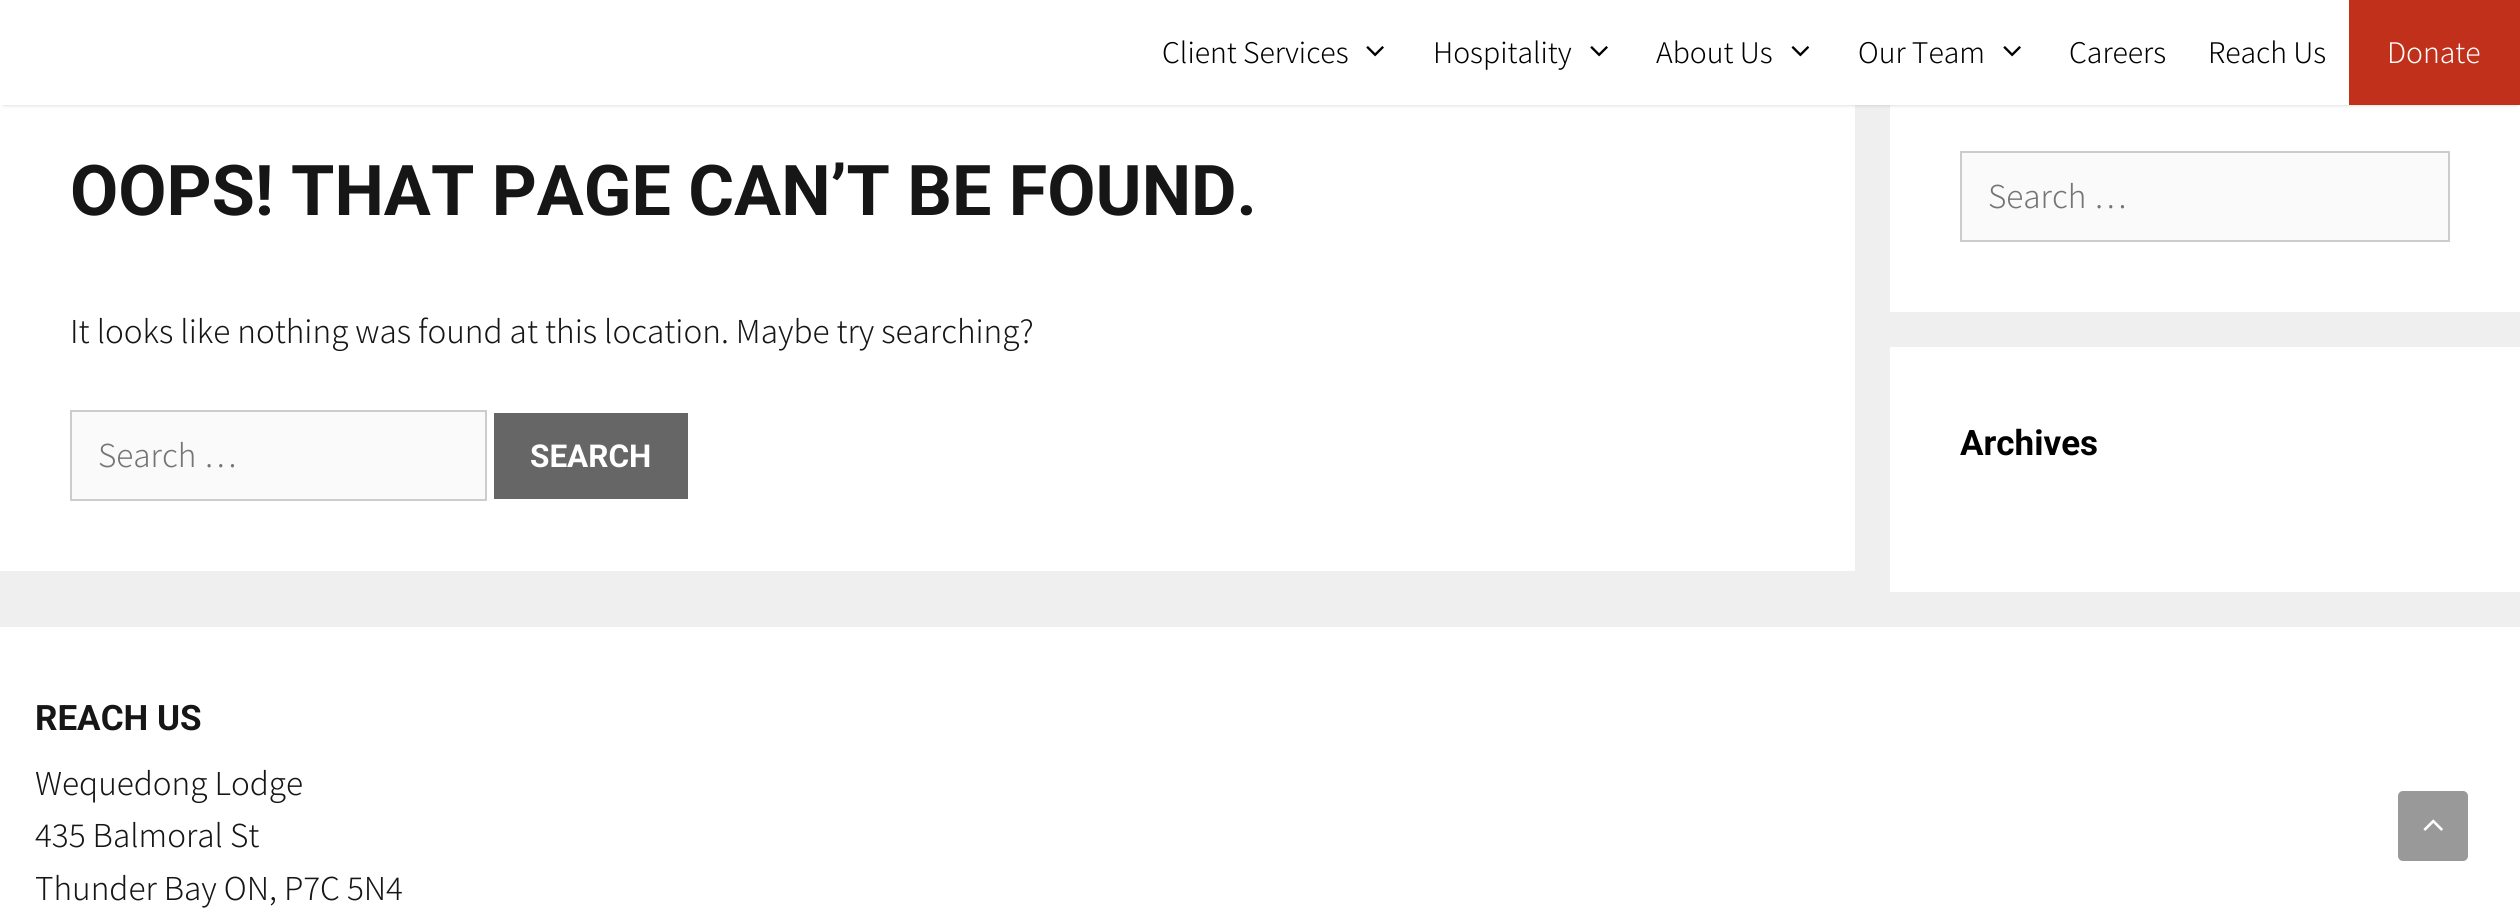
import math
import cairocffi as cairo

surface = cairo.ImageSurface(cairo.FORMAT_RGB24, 2520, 912)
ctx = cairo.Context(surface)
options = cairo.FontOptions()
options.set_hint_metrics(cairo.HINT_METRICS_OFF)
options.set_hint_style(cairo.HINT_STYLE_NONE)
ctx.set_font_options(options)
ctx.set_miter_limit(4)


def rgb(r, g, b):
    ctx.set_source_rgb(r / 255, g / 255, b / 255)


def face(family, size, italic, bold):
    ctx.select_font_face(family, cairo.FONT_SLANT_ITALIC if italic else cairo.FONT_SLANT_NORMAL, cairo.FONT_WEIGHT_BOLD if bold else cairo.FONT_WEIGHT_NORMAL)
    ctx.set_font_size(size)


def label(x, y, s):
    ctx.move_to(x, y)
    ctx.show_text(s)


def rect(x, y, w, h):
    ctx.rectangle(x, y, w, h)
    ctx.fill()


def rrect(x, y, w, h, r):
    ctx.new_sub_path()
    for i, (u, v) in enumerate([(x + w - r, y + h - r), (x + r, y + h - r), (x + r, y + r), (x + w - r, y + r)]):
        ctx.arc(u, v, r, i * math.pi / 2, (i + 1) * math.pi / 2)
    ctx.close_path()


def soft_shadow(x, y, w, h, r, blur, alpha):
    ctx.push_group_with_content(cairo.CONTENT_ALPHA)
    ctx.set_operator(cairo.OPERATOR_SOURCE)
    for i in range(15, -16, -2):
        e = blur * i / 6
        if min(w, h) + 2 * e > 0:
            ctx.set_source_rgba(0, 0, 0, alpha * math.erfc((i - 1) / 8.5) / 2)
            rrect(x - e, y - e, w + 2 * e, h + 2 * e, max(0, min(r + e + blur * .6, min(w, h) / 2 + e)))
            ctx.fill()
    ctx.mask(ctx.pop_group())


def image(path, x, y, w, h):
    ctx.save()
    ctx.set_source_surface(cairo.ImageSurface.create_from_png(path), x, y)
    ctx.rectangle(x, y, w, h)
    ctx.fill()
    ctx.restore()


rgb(239, 239, 239)
ctx.paint()
rgb(255, 255, 255)
rect(0, 105, 1855, 466)
rect(1890, 105, 630, 207)
rgb(0, 0, 0)
soft_shadow(4, 7, 2513, 98, 0, 2, 0.2)
rgb(255, 255, 255)
rect(0, 0, 2349, 105)
face('Assistant Light', 31.5, 0, 0)
rgb(0, 0, 0)
label(1162, 63, 'Client Services')
image('image0.png', 1366, 46, 18, 11)
label(1433, 63, 'Hospitality')
image('image0.png', 1590, 46, 18, 11)
label(1656, 63, 'About Us')
image('image1.png', 1791, 46, 19, 11)
label(1858, 63, 'Our Team')
image('image0.png', 2003, 46, 18, 11)
label(2069, 63, 'Careers')
label(2208, 63, 'Reach Us')
rgb(192, 48, 26)
rect(2349, 0, 171, 105)
rgb(255, 255, 255)
label(2387, 63, 'Donate')
face('Roboto', 70, 0, 1)
rgb(22, 22, 22)
label(70, 215, 'OOPS! THAT PAGE CAN’T BE FOUND.')
face('Assistant Light', 35, 0, 0)
label(70, 343, 'It looks like nothing was found at this location. Maybe try searching?')
rgb(250, 250, 250)
ctx.rectangle(71, 411, 415, 89)
ctx.fill_preserve()
rgb(204, 204, 204)
ctx.stroke()
rgb(117, 117, 117)
label(98, 467, 'Search …')
rgb(102, 102, 102)
rect(494, 413, 194, 86)
face('Roboto', 31.5, 0, 1)
rgb(255, 255, 255)
label(530, 467, 'SEARCH')
rgb(250, 250, 250)
ctx.rectangle(1961, 152, 488, 89)
ctx.fill_preserve()
rgb(204, 204, 204)
ctx.stroke()
face('Assistant Light', 35, 0, 0)
rgb(117, 117, 117)
label(1988, 208, 'Search …')
rgb(255, 255, 255)
rect(1890, 347, 630, 245)
face('Roboto', 35, 0, 1)
rgb(0, 0, 0)
label(1960, 455, 'Archives')
rgb(255, 255, 255)
rect(0, 627, 2520, 285)
rgb(22, 22, 22)
label(35, 730, 'REACH US')
face('Assistant Light', 35, 0, 0)
label(35, 795, 'Wequedong Lodge')
label(35, 847, '435 Balmoral St')
label(35, 900, 'Thunder Bay ON, P7C 5N4')
rgb(153, 153, 153)
rrect(2398, 791, 70, 70, 5)
ctx.fill()
image('image2.png', 2423, 819, 20, 12)
surface.write_to_png('render.png')
